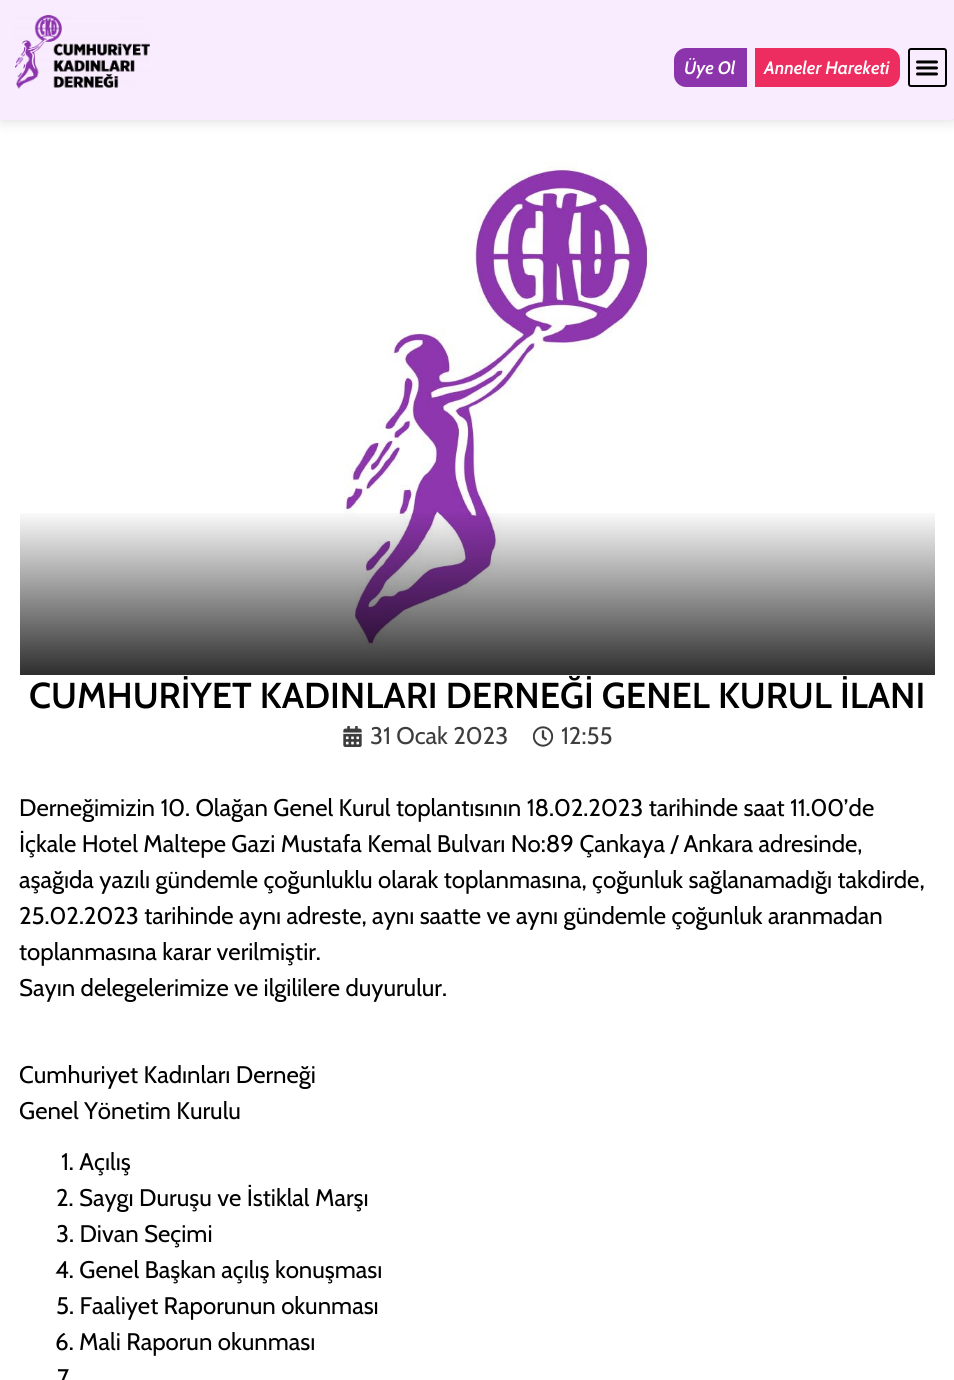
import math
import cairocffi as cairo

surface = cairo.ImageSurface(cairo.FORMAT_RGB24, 954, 1380)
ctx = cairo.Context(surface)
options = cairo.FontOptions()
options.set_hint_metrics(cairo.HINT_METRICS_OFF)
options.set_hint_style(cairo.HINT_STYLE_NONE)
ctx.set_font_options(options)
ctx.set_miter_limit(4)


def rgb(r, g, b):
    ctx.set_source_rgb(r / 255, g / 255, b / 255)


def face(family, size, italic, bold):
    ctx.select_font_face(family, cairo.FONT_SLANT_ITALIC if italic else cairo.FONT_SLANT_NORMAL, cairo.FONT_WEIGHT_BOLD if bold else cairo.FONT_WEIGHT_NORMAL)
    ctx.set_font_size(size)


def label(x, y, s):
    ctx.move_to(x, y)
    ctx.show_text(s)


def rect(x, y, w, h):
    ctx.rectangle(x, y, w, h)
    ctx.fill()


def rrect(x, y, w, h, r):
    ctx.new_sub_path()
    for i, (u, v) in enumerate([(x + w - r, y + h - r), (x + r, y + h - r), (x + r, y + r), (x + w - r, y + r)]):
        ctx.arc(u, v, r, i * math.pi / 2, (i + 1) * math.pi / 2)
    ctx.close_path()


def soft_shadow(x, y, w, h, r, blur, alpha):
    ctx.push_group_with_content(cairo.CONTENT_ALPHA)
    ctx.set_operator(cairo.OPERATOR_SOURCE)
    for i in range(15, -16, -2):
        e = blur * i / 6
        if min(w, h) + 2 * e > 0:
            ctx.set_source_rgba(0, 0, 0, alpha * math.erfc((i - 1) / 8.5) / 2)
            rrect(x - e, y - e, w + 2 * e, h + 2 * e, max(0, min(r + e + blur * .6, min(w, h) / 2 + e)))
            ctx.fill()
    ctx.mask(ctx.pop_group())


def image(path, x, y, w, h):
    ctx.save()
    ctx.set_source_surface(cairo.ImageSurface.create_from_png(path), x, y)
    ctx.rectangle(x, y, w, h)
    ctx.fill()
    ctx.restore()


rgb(255, 255, 255)
ctx.paint()
rgb(0, 0, 0)
soft_shadow(0, 0, 954, 120, 1.5, 7.5, 0.15)
ctx.save()
ctx.rectangle(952, 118, 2, 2)
ctx.clip()
soft_shadow(0, 120, 954, 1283, 0, 7.5, 0.15)
ctx.restore()
rgb(250, 236, 255)
ctx.new_path()
ctx.move_to(0, 0)
ctx.line_to(954, 0)
ctx.line_to(954, 118.5)
ctx.curve_to(954, 119.5, 953.5, 120, 952.5, 120)
ctx.line_to(0, 120)
ctx.close_path()
ctx.fill()
image('image0.png', 15, 15, 135, 74)
rgb(140, 52, 172)
ctx.new_path()
ctx.move_to(686, 48)
ctx.line_to(747, 48)
ctx.line_to(747, 87)
ctx.line_to(686, 87)
ctx.curve_to(679.5, 87, 674, 81.5, 674, 75)
ctx.line_to(674, 60)
ctx.curve_to(674, 53.5, 679.5, 48, 686, 48)
ctx.close_path()
ctx.fill()
face('Cabin SemiBold', 18, 1, 0)
rgb(255, 255, 255)
label(684, 74, 'Üye Ol')
rgb(237, 45, 96)
ctx.new_path()
ctx.move_to(755, 48)
ctx.line_to(888, 48)
ctx.curve_to(894.5, 48, 900, 53.5, 900, 60)
ctx.line_to(900, 75)
ctx.curve_to(900, 81.5, 894.5, 87, 888, 87)
ctx.line_to(755, 87)
ctx.close_path()
ctx.fill()
rgb(255, 255, 255)
label(764, 74, 'Anneler Hareketi')
rrect(909, 49, 37, 37, 2)
rgb(0, 0, 0)
ctx.stroke()
image('image1.png', 916, 60, 22, 16)
image('image2.png', 343, 162, 314, 491)
gradient = cairo.LinearGradient(477, 138, 477, 675)
gradient.add_color_stop_rgba(0.69, 0, 0, 0, 0)
gradient.add_color_stop_rgba(1, 0, 0, 0, 0.82)
ctx.set_source(gradient)
rect(20, 513, 915, 162)
face('Cabin SemiBold', 36, 0, 0)
rgb(0, 0, 0)
label(29, 708, 'CUMHURİYET KADINLARI DERNEĞİ GENEL KURUL İLANI')
image('image3.png', 343, 726, 19, 21)
face('Cabin', 24, 0, 0)
rgb(61, 61, 61)
label(370, 744, '31 Ocak 2023')
image('image4.png', 533, 726, 21, 21)
label(561, 744, '12:55')
rgb(0, 0, 0)
label(19, 816, 'Derneğimizin 10. Olağan Genel Kurul toplantısının 18.02.2023 tarihinde saat 11.00’de')
label(19, 852, 'İçkale Hotel Maltepe Gazi Mustafa Kemal Bulvarı No:89 Çankaya / Ankara adresinde,')
label(19, 888, 'aşağıda yazılı gündemle çoğunluklu olarak toplanmasına, çoğunluk sağlanamadığı takdirde,')
label(19, 924, '25.02.2023 tarihinde aynı adreste, aynı saatte ve aynı gündemle çoğunluk aranmadan')
label(19, 960, 'toplanmasına karar verilmiştir.')
label(19, 996, 'Sayın delegelerimize ve ilgililere duyurulur.')
label(19, 1083, 'Cumhuriyet Kadınları Derneği')
label(19, 1119, 'Genel Yönetim Kurulu')
label(61, 1170, '1. Açılış')
label(56, 1206, '2. Saygı Duruşu ve İstiklal Marşı')
label(56, 1242, '3. Divan Seçimi')
label(55, 1278, '4. Genel Başkan açılış konuşması')
label(56, 1314, '5. Faaliyet Raporunun okunması')
label(55, 1350, '6. Mali Raporun okunması')
label(57, 1386, '7')
surface.write_to_png('render.png')
